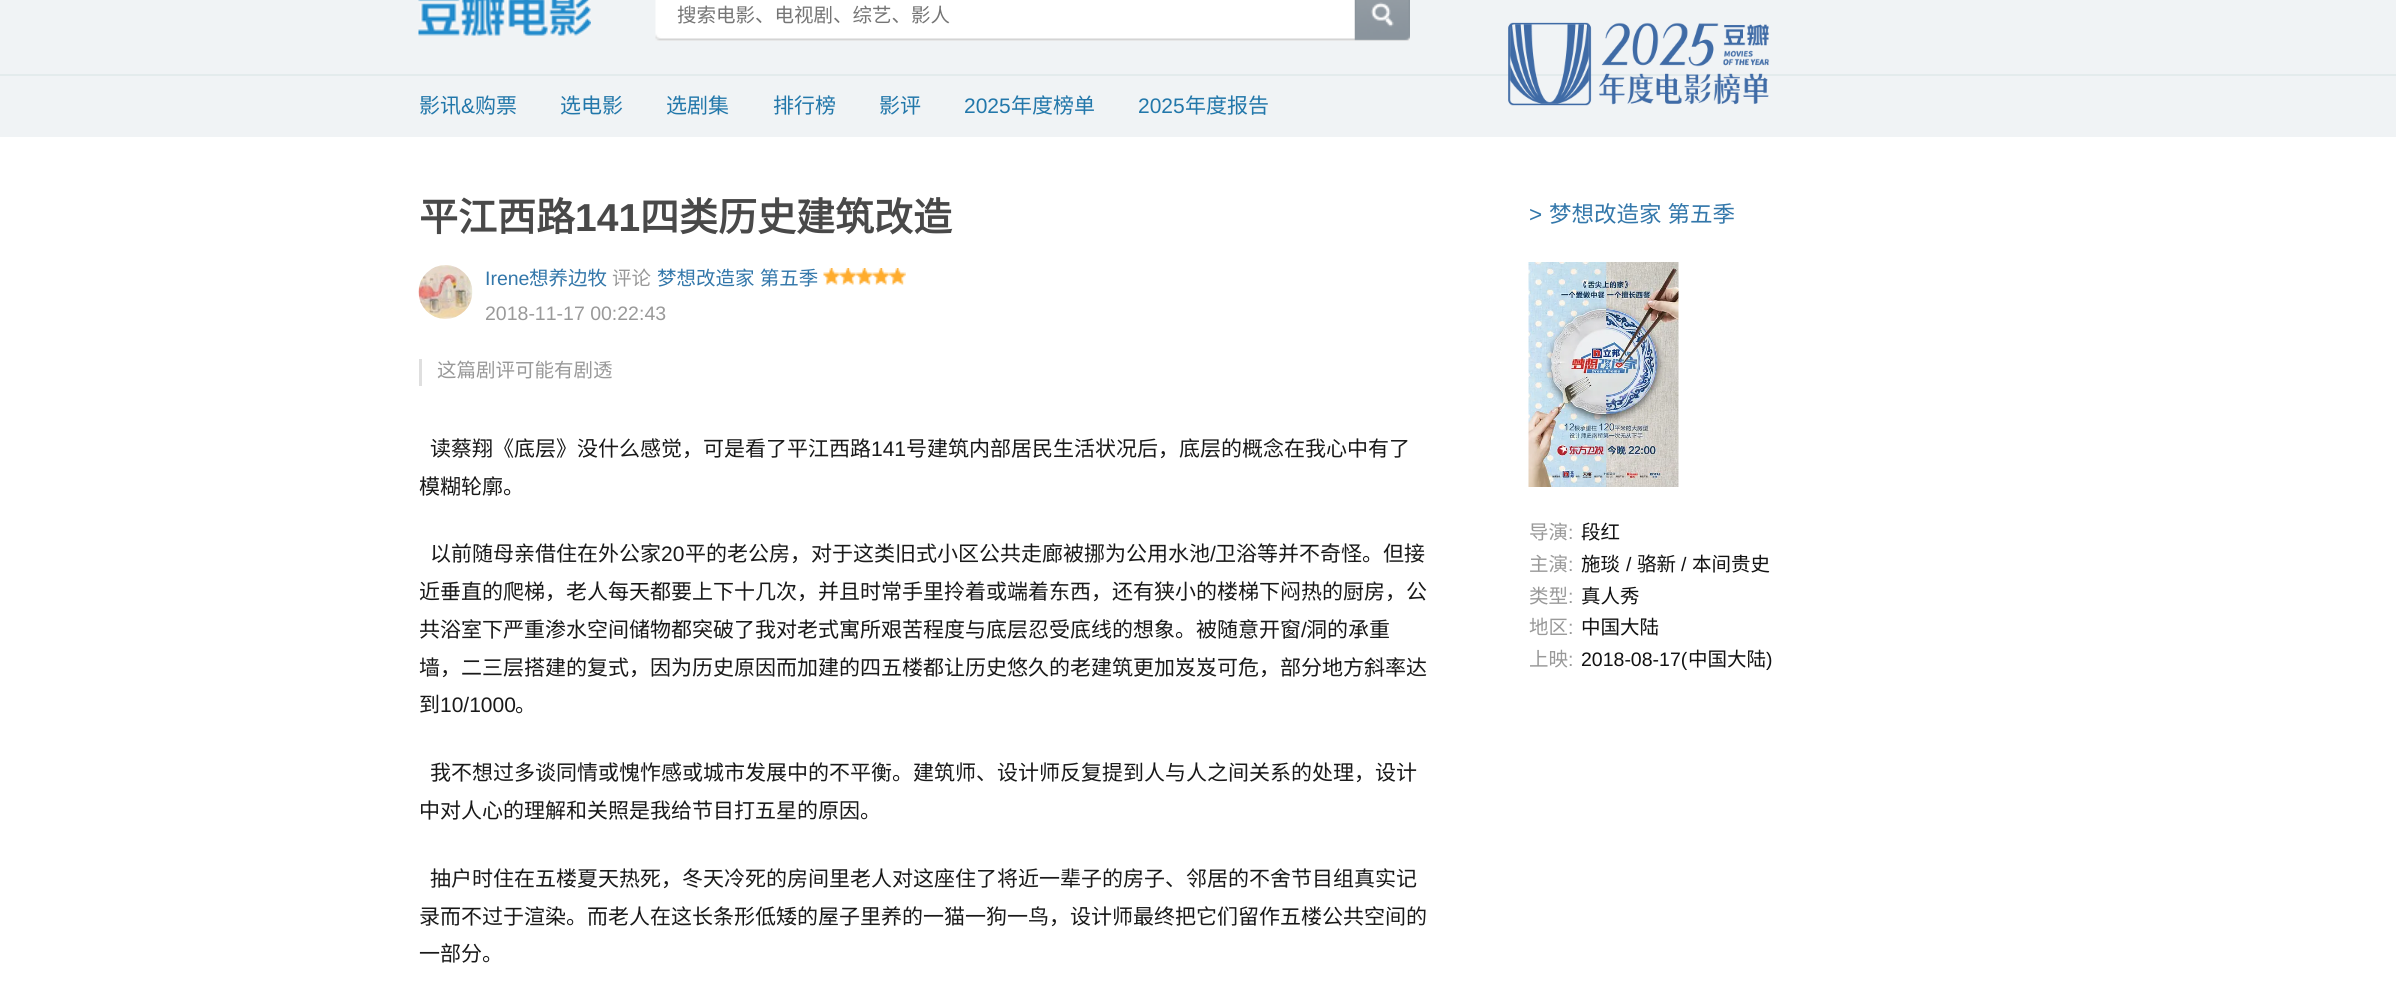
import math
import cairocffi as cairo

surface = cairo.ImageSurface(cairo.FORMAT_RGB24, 2396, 996)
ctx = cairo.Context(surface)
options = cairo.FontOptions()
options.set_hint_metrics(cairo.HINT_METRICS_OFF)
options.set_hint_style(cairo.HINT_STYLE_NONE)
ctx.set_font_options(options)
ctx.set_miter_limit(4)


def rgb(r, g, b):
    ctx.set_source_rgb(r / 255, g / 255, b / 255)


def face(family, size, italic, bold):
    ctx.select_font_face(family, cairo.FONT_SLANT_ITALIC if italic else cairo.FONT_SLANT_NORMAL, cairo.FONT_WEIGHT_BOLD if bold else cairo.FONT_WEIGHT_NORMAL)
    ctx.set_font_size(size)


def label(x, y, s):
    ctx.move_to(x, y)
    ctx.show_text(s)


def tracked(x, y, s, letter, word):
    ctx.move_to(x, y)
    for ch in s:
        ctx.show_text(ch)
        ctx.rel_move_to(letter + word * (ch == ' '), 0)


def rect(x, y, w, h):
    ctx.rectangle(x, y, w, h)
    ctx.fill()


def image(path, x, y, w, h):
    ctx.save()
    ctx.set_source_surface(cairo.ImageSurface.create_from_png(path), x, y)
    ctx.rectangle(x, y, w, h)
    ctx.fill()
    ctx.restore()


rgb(255, 255, 255)
ctx.paint()
rgb(240, 243, 245)
rect(0, 0, 2396, 137)
rgb(227, 235, 236)
rect(0, 74, 2396, 2)
image('image0.png', 418, 0, 173, 36)
image('image1.png', 655, 0, 700, 41)
face('Noto Sans CJK SC', 19.5, 0, 0)
rgb(117, 117, 117)
label(677, 22, '搜索电影、电视剧、综艺、影人')
image('image2.png', 1354, 0, 56, 41)
face('Noto Sans CJK SC', 21, 0, 0)
rgb(34, 119, 170)
label(419, 113, '影讯')
face('Liberation Sans', 21, 0, 0)
label(461, 113, '&')
face('Noto Sans CJK SC', 21, 0, 0)
label(475, 113, '购票')
label(560, 113, '选电影')
label(666, 113, '选剧集')
label(773, 113, '排行榜')
label(879, 113, '影评')
face('Liberation Sans', 21, 0, 0)
label(964, 113, '2025')
face('Noto Sans CJK SC', 21, 0, 0)
label(1011, 113, '年度榜单')
face('Liberation Sans', 21, 0, 0)
label(1138, 113, '2025')
face('Noto Sans CJK SC', 21, 0, 0)
label(1185, 113, '年度报告')
image('image3.png', 1508, 22, 262, 84)
face('Noto Sans CJK SC', 39, 0, 1)
rgb(73, 73, 73)
label(419, 231, '平江西路')
face('Liberation Sans', 39, 0, 1)
label(575, 231, '141')
face('Noto Sans CJK SC', 39, 0, 1)
label(640, 231, '四类历史建筑改造')
image('image4.png', 418, 265, 55, 54)
face('Liberation Sans', 19.5, 0, 0)
rgb(51, 119, 170)
label(485, 285, 'Irene')
face('Noto Sans CJK SC', 19.5, 0, 0)
label(529, 285, '想养边牧')
rgb(153, 153, 153)
label(612, 285, '评论')
rgb(51, 119, 170)
tracked(657, 285, '梦想改造家 第五季', 0, 1)
image('image5.png', 823, 268, 83, 17)
face('Liberation Sans', 19.5, 0, 0)
rgb(153, 153, 153)
label(485, 320, '2018-11-17 00:22:43')
rgb(223, 223, 223)
rect(419, 359, 3, 27)
face('Noto Sans CJK SC', 19.5, 0, 0)
rgb(153, 153, 153)
label(437, 377, '这篇剧评可能有剧透')
face('Noto Sans CJK SC', 21, 0, 0)
rgb(25, 25, 25)
label(430, 456, '读蔡翔《底层》没什么感觉，可是看了平江西路')
face('Liberation Sans', 21, 0, 0)
label(871, 456, '141')
face('Noto Sans CJK SC', 21, 0, 0)
label(906, 456, '号建筑内部居民生活状况后，底层的概念在我心中有了')
label(419, 494, '模糊轮廓。')
label(430, 561, '以前随母亲借住在外公家')
face('Liberation Sans', 21, 0, 0)
label(661, 561, '20')
face('Noto Sans CJK SC', 21, 0, 0)
label(685, 561, '平的老公房，对于这类旧式小区公共走廊被挪为公用水池')
face('Liberation Sans', 21, 0, 0)
label(1210, 561, '/')
face('Noto Sans CJK SC', 21, 0, 0)
label(1215, 561, '卫浴等并不奇怪。但接')
label(419, 599, '近垂直的爬梯，老人每天都要上下十几次，并且时常手里拎着或端着东西，还有狭小的楼梯下闷热的厨房，公')
label(419, 637, '共浴室下严重渗水空间储物都突破了我对老式寓所艰苦程度与底层忍受底线的想象。被随意开窗')
face('Liberation Sans', 21, 0, 0)
label(1301, 637, '/')
face('Noto Sans CJK SC', 21, 0, 0)
label(1306, 637, '洞的承重')
label(419, 675, '墙，二三层搭建的复式，因为历史原因而加建的四五楼都让历史悠久的老建筑更加岌岌可危，部分地方斜率达')
label(419, 712, '到')
face('Liberation Sans', 21, 0, 0)
label(440, 712, '10/1000')
face('Noto Sans CJK SC', 21, 0, 0)
label(515, 712, '。')
label(430, 780, '我不想过多谈同情或愧怍感或城市发展中的不平衡。建筑师、设计师反复提到人与人之间关系的处理，设计')
label(419, 818, '中对人心的理解和关照是我给节目打五星的原因。')
label(430, 886, '抽户时住在五楼夏天热死，冬天冷死的房间里老人对这座住了将近一辈子的房子、邻居的不舍节目组真实记')
label(419, 924, '录而不过于渲染。而老人在这长条形低矮的屋子里养的一猫一狗一鸟，设计师最终把它们留作五楼公共空间的')
label(419, 961, '一部分。')
face('Liberation Sans', 22.5, 0, 0)
rgb(51, 119, 170)
label(1529, 222, '>')
face('Noto Sans CJK SC', 22.5, 0, 0)
tracked(1549, 222, '梦想改造家 第五季', 0, 1)
image('image6.png', 1528, 262, 151, 225)
face('Noto Sans CJK SC', 19.5, 0, 0)
rgb(153, 153, 153)
label(1529, 539, '导演')
face('Liberation Sans', 19.5, 0, 0)
label(1568, 539, ':')
face('Noto Sans CJK SC', 19.5, 0, 0)
rgb(17, 17, 17)
label(1581, 539, '段红')
rgb(153, 153, 153)
label(1529, 571, '主演')
face('Liberation Sans', 19.5, 0, 0)
label(1568, 571, ':')
face('Noto Sans CJK SC', 19.5, 0, 0)
rgb(17, 17, 17)
label(1581, 571, '施琰')
face('Liberation Sans', 19.5, 0, 0)
label(1626, 571, '/')
face('Noto Sans CJK SC', 19.5, 0, 0)
label(1637, 571, '骆新')
face('Liberation Sans', 19.5, 0, 0)
label(1681, 571, '/')
face('Noto Sans CJK SC', 19.5, 0, 0)
label(1692, 571, '本间贵史')
rgb(153, 153, 153)
label(1529, 603, '类型')
face('Liberation Sans', 19.5, 0, 0)
label(1568, 603, ':')
face('Noto Sans CJK SC', 19.5, 0, 0)
rgb(17, 17, 17)
label(1581, 603, '真人秀')
rgb(153, 153, 153)
label(1529, 634, '地区')
face('Liberation Sans', 19.5, 0, 0)
label(1568, 634, ':')
face('Noto Sans CJK SC', 19.5, 0, 0)
rgb(17, 17, 17)
label(1581, 634, '中国大陆')
rgb(153, 153, 153)
label(1529, 666, '上映')
face('Liberation Sans', 19.5, 0, 0)
label(1568, 666, ':')
rgb(17, 17, 17)
label(1581, 666, '2018-08-17(')
face('Noto Sans CJK SC', 19.5, 0, 0)
label(1688, 666, '中国大陆')
face('Liberation Sans', 19.5, 0, 0)
label(1766, 666, ')')
surface.write_to_png('render.png')
